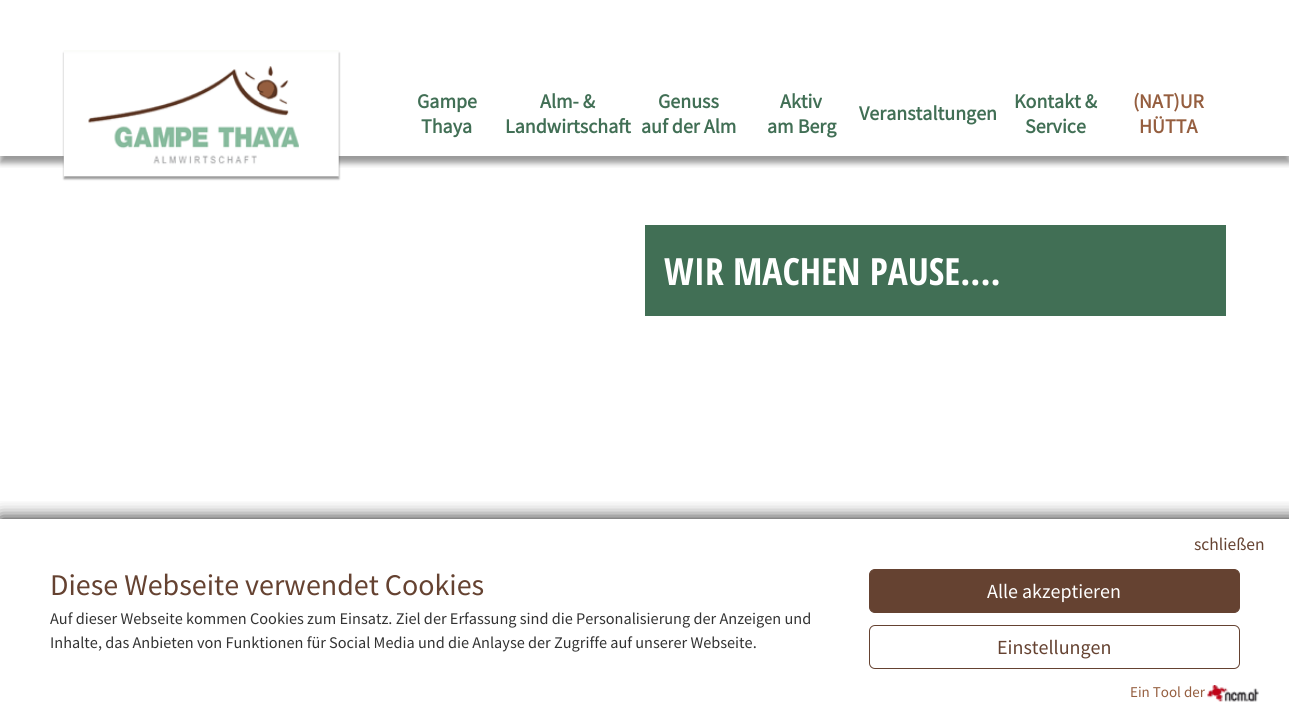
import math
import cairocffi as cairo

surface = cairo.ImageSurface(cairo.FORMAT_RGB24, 1289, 714)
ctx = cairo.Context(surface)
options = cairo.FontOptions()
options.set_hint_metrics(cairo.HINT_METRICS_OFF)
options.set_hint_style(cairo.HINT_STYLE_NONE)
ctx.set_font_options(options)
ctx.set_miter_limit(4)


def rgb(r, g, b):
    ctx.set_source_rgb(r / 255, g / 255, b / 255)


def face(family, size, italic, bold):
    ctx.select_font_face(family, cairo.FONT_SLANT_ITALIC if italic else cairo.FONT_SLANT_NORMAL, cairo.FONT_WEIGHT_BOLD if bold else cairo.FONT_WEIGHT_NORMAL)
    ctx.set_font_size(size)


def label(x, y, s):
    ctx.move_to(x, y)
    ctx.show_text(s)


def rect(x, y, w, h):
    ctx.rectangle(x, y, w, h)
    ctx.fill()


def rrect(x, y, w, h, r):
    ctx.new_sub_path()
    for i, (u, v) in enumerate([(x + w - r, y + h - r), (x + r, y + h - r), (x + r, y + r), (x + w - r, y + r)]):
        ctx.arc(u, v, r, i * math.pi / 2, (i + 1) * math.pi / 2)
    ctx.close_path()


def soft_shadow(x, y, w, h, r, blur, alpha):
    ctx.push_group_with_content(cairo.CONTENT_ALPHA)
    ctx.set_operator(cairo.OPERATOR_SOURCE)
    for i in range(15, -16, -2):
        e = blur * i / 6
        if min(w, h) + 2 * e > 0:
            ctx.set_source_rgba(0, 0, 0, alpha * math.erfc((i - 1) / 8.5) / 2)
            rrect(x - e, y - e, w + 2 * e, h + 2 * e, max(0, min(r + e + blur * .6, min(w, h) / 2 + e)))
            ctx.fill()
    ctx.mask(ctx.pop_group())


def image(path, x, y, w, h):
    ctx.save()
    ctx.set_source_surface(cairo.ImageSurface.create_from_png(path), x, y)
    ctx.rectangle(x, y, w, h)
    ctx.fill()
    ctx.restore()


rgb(255, 255, 255)
ctx.paint()
ctx.save()
ctx.rectangle(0, 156, 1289, 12)
ctx.clip()
rgb(50, 50, 50)
soft_shadow(0, 75, 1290, 88, 0, 3, 0.5)
ctx.restore()
rgb(50, 50, 50)
soft_shadow(64, 53, 275, 126, 0, 1, 0.5)
image('image0.png', 63, 50, 276, 127)
face('Source Sans Pro', 20, 0, 1)
rgb(65, 111, 85)
label(417, 108, 'Gampe')
label(421, 133, 'Thaya')
label(540, 108, 'Alm- &')
label(505, 133, 'Landwirtschaft')
label(658, 108, 'Genuss')
label(641, 133, 'auf der Alm')
label(780, 108, 'Aktiv')
label(767, 133, 'am Berg')
label(859, 120, 'Veranstaltungen')
label(1014, 108, 'Kontakt &')
label(1025, 133, 'Service')
rgb(149, 94, 63)
label(1133, 108, '(NAT)UR')
label(1139, 133, 'HÜTTA')
rgb(65, 111, 85)
rect(645, 225, 581, 91)
face('Open Sans Condensed', 37.5, 0, 1)
rgb(255, 255, 255)
label(664, 285, 'WIR MACHEN PAUSE....')
ctx.save()
ctx.rectangle(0, 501, 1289, 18)
ctx.clip()
rgb(18, 18, 18)
soft_shadow(0, 519, 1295, 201, 0, 9, 1)
ctx.restore()
face('Source Sans Pro', 17.5, 0, 0)
rgb(101, 66, 49)
label(1194, 550, 'schließen')
face('Source Sans Pro', 30, 0, 0)
label(50, 595, 'Diese Webseite verwendet Cookies')
face('Source Sans Pro', 16.25, 0, 0)
rgb(51, 51, 51)
label(50, 624, 'Auf dieser Webseite kommen Cookies zum Einsatz. Ziel der Erfassung sind die Personalisierung der Anzeigen und')
label(50, 648, 'Inhalte, das Anbieten von Funktionen für Social Media und die Anlayse der Zugriffe auf unserer Webseite.')
rgb(101, 66, 49)
rrect(869.5, 569.5, 370, 43, 5.5)
ctx.fill_preserve()
ctx.set_line_width(1)
ctx.stroke()
face('Source Sans Pro', 20, 0, 0)
rgb(255, 255, 255)
label(987, 598, 'Alle akzeptieren')
rrect(869.5, 625.5, 370, 43, 5.5)
rgb(101, 66, 49)
ctx.stroke()
label(997, 654, 'Einstellungen')
face('Source Sans Pro', 15, 0, 0)
rgb(149, 94, 63)
label(1130, 697, 'Ein Tool der')
image('image1.png', 1207, 685, 52, 17)
surface.write_to_png('render.png')
